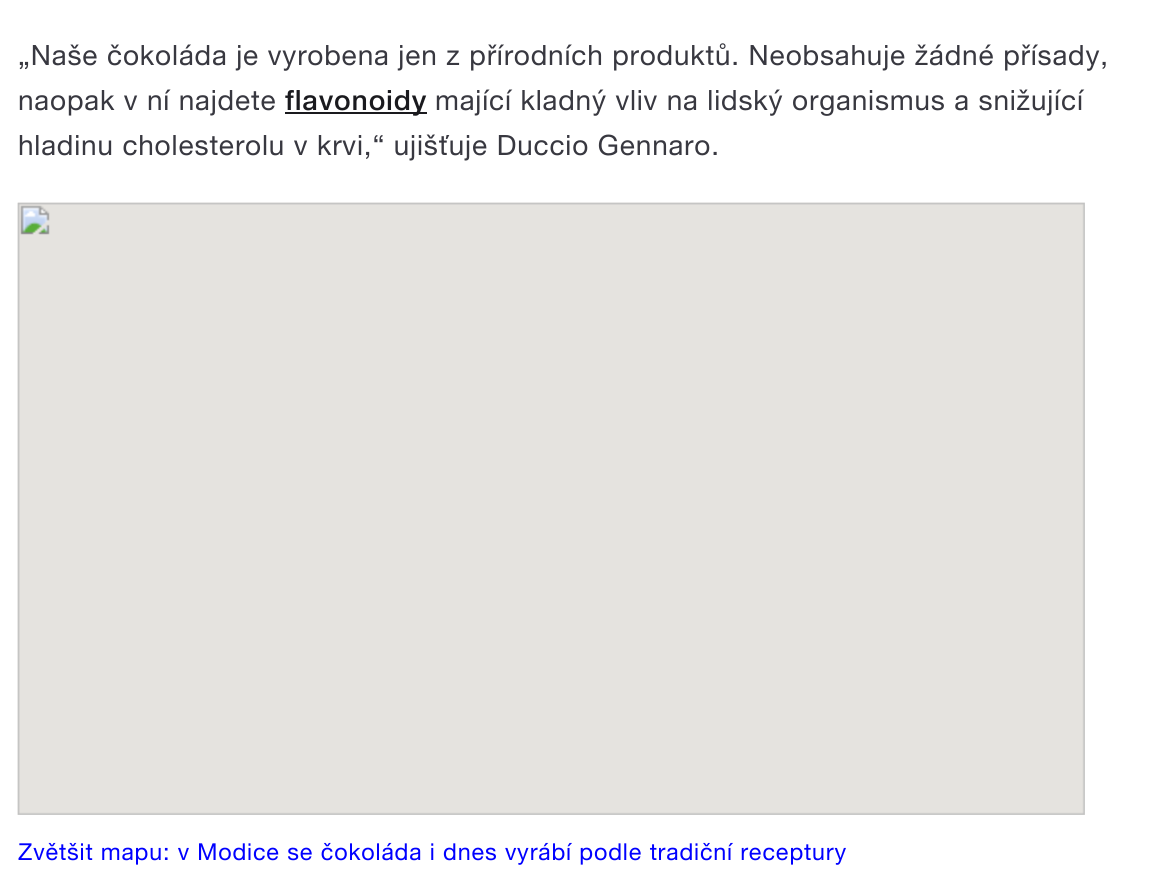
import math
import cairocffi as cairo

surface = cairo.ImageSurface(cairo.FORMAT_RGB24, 1166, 879)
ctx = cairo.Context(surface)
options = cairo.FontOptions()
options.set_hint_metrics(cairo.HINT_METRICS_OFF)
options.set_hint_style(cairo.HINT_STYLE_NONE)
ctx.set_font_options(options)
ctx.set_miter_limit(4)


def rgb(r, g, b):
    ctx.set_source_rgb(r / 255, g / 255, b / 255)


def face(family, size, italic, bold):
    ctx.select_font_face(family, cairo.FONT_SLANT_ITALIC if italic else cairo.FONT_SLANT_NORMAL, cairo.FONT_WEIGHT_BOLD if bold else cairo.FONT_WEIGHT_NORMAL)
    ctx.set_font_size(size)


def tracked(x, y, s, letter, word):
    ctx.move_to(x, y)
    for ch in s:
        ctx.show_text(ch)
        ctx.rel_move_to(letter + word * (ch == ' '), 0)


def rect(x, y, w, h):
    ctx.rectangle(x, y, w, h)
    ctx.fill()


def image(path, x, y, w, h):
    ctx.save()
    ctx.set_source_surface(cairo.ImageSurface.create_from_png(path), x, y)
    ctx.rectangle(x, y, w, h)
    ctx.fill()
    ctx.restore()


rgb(255, 255, 255)
ctx.paint()
face('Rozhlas', 28, 0, 0)
rgb(56, 56, 64)
tracked(18, 65, '„Naše čokoláda je vyrobena jen z přírodních produktů. Neobsahuje žádné přísady,', 0.85, 0)
tracked(18, 110, 'naopak v ní najdete', 0.85, 0)
rgb(26, 26, 30)
rect(285, 112, 142, 2)
face('Rozhlas Medium', 28, 0, 0)
tracked(285, 110, 'flavonoidy', 0.85, 0)
face('Rozhlas', 28, 0, 0)
rgb(56, 56, 64)
tracked(435, 110, 'mající kladný vliv na lidský organismus a snižující', 0.85, 0)
tracked(18, 155, 'hladinu cholesterolu v krvi,“ ujišťuje Duccio Gennaro.', 0.85, 0)
image('image0.png', 17, 202, 1068, 613)
face('Rozhlas', 23.35, 0, 0)
rgb(0, 0, 255)
tracked(18, 860, 'Zvětšit mapu: v Modice se čokoláda i dnes vyrábí podle tradiční receptury', 0.85, 0)
surface.write_to_png('render.png')
